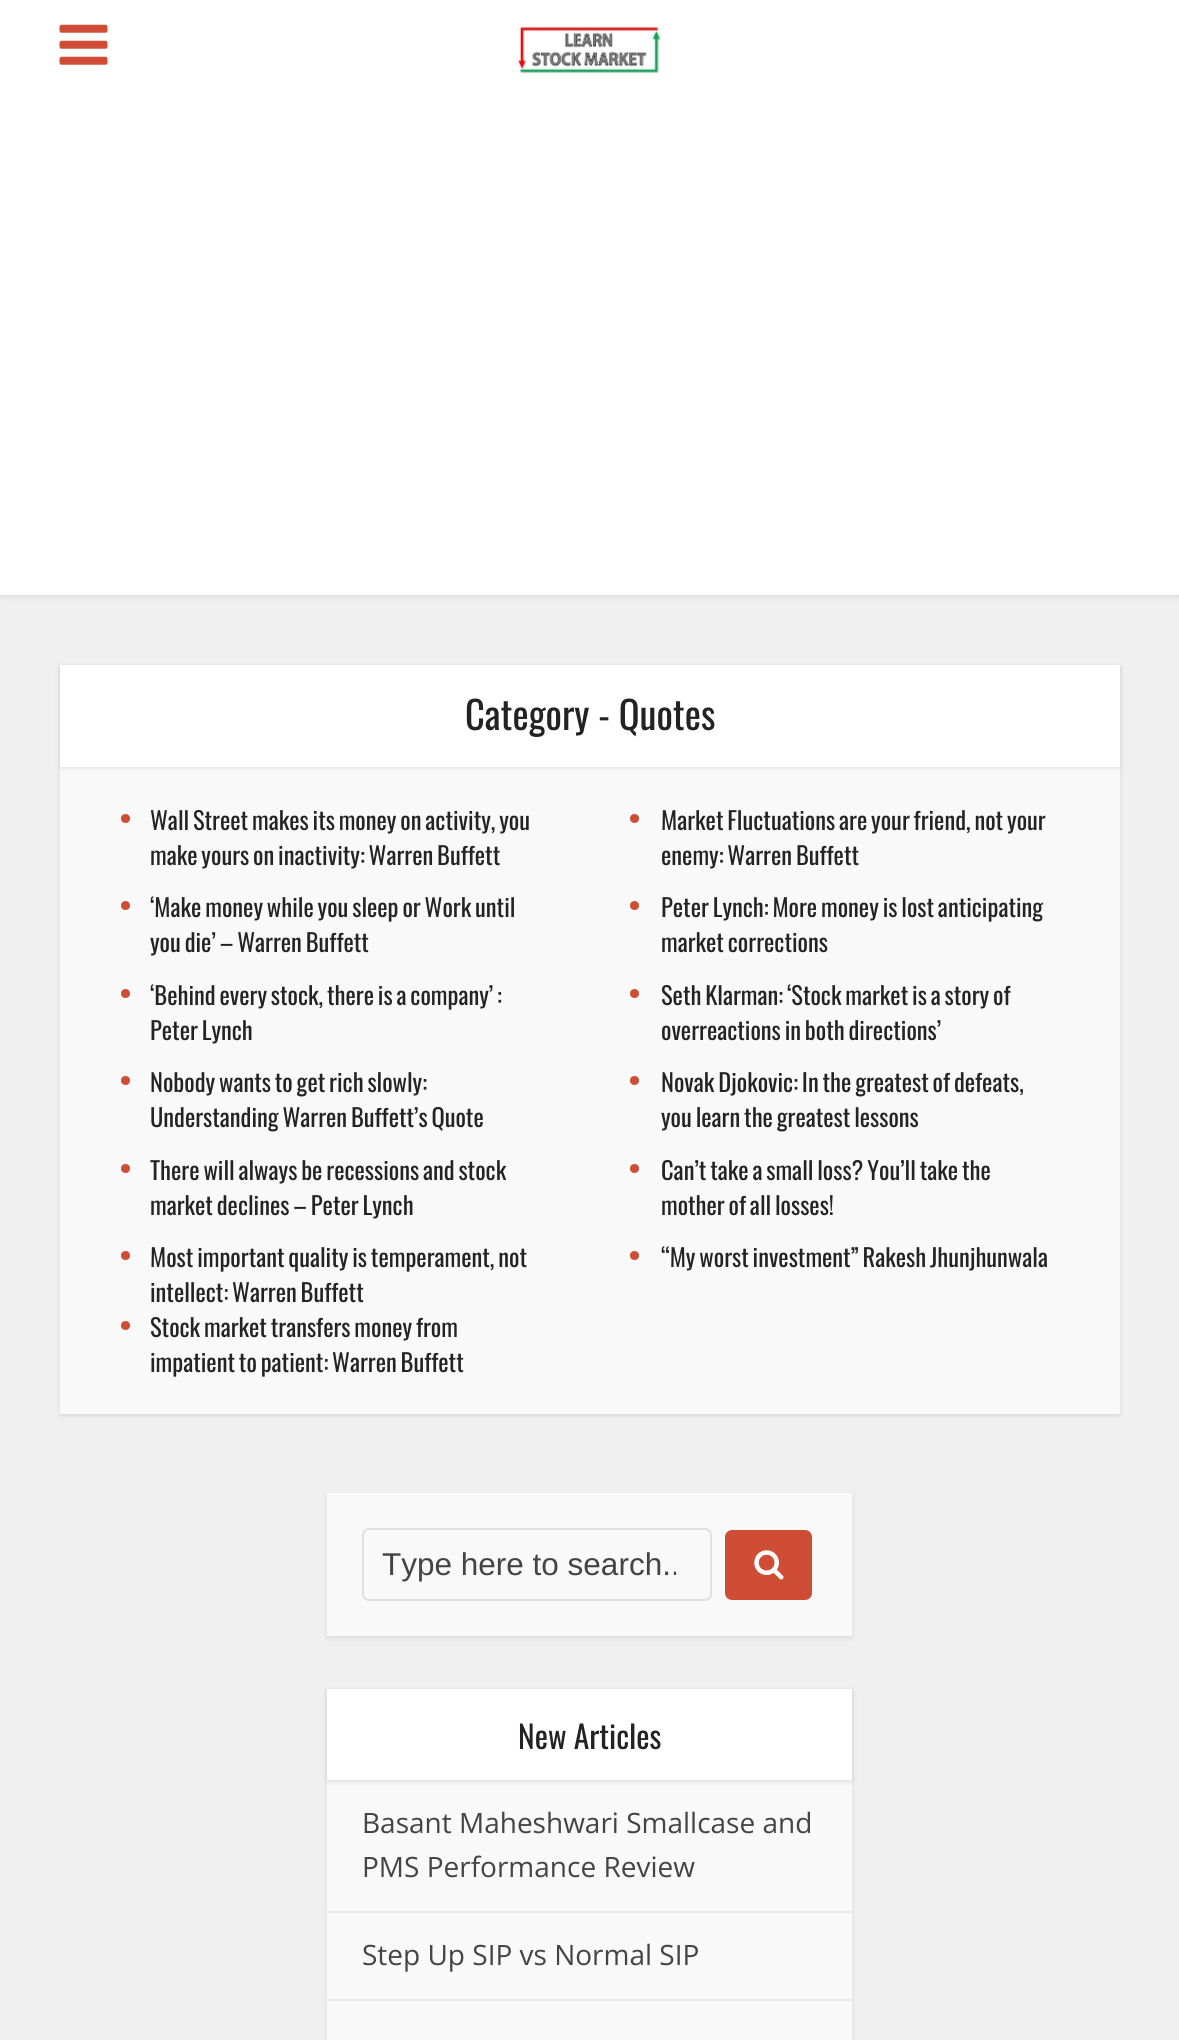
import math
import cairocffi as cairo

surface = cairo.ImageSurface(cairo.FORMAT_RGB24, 1179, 2040)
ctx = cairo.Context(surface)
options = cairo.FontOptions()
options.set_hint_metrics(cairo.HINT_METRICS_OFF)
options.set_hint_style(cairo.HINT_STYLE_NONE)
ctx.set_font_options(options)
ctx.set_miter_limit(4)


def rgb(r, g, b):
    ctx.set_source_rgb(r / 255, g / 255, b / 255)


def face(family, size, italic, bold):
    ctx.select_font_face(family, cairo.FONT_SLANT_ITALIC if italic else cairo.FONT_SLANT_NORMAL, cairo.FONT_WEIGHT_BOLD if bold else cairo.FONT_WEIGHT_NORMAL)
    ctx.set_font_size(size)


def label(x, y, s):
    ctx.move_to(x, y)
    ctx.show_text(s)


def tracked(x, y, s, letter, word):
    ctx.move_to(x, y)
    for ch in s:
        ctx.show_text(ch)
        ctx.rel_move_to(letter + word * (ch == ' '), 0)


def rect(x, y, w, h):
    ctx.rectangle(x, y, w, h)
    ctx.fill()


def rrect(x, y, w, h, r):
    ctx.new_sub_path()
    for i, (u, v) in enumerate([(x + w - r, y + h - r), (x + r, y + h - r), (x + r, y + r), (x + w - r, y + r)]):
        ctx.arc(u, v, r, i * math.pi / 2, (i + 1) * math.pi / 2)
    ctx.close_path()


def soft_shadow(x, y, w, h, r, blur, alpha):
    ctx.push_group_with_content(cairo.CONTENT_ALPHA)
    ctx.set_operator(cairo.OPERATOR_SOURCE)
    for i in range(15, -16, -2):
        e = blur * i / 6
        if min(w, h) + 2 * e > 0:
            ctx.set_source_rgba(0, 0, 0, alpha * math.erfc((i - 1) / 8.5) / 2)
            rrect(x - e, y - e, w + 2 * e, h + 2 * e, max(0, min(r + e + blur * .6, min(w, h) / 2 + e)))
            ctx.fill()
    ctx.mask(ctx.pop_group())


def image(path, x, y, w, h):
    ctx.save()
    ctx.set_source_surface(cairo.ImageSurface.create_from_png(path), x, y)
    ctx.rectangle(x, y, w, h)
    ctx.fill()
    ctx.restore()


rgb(240, 240, 240)
ctx.paint()
rgb(0, 0, 0)
soft_shadow(0, 2, 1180, 595, 0, 2.5, 0.1)
rgb(255, 255, 255)
rect(0, 0, 1179, 595)
image('image0.png', 59, 24, 49, 41)
image('image1.png', 518, 24, 144, 50)
rgb(0, 0, 0)
soft_shadow(60, 667, 1060, 749, 0, 2.5, 0.1)
rgb(249, 249, 249)
rect(60, 767, 1060, 647)
rgb(0, 0, 0)
soft_shadow(60, 667, 1060, 101, 0, 2.5, 0.1)
rgb(255, 255, 255)
rect(60, 665, 1060, 102)
face('Oswald', 38.5, 0, 0)
rgb(35, 35, 35)
label(465, 730, 'Category - Quotes')
rgb(207, 77, 53)
ctx.new_path()
ctx.arc(125.5, 818.5, 4.5, 0, 2 * math.pi)
ctx.fill()
face('Oswald', 24.5, 0, 0)
rgb(35, 35, 35)
tracked(150, 830, 'Wall Street makes its money on activity, you', 0, -1.75)
tracked(150, 865, 'make yours on inactivity: Warren Buffett', 0, -1.75)
rgb(207, 77, 53)
ctx.new_path()
ctx.arc(634.5, 818.5, 4.5, 0, 2 * math.pi)
ctx.fill()
rgb(35, 35, 35)
tracked(661, 830, 'Market Fluctuations are your friend, not your', 0, -1.75)
tracked(661, 865, 'enemy: Warren Buffett', 0, -1.75)
rgb(207, 77, 53)
ctx.new_path()
ctx.arc(125.5, 905.5, 4.5, 0, 2 * math.pi)
ctx.fill()
rgb(35, 35, 35)
tracked(150, 917, '‘Make money while you sleep or Work until', 0, -1.75)
tracked(150, 952, 'you die’ – Warren Buffett', 0, -1.75)
rgb(207, 77, 53)
ctx.new_path()
ctx.arc(634.5, 905.5, 4.5, 0, 2 * math.pi)
ctx.fill()
rgb(35, 35, 35)
tracked(661, 917, 'Peter Lynch: More money is lost anticipating', 0, -1.75)
tracked(661, 952, 'market corrections', 0, -1.75)
rgb(207, 77, 53)
ctx.new_path()
ctx.arc(125.5, 993.5, 4.5, 0, 2 * math.pi)
ctx.fill()
rgb(35, 35, 35)
tracked(150, 1005, '‘Behind every stock, there is a company’ :', 0, -1.75)
tracked(150, 1040, 'Peter Lynch', 0, -1.75)
rgb(207, 77, 53)
ctx.new_path()
ctx.arc(634.5, 993.5, 4.5, 0, 2 * math.pi)
ctx.fill()
rgb(35, 35, 35)
tracked(661, 1005, 'Seth Klarman: ‘Stock market is a story of', 0, -1.75)
tracked(661, 1040, 'overreactions in both directions’', 0, -1.75)
rgb(207, 77, 53)
ctx.new_path()
ctx.arc(125.5, 1080.5, 4.5, 0, 2 * math.pi)
ctx.fill()
rgb(35, 35, 35)
tracked(150, 1092, 'Nobody wants to get rich slowly:', 0, -1.75)
tracked(150, 1127, 'Understanding Warren Buffett’s Quote', 0, -1.75)
rgb(207, 77, 53)
ctx.new_path()
ctx.arc(634.5, 1080.5, 4.5, 0, 2 * math.pi)
ctx.fill()
rgb(35, 35, 35)
tracked(661, 1092, 'Novak Djokovic: In the greatest of defeats,', 0, -1.75)
tracked(661, 1127, 'you learn the greatest lessons', 0, -1.75)
rgb(207, 77, 53)
ctx.new_path()
ctx.arc(125.5, 1168.5, 4.5, 0, 2 * math.pi)
ctx.fill()
rgb(35, 35, 35)
tracked(150, 1180, 'There will always be recessions and stock', 0, -1.75)
tracked(150, 1215, 'market declines – Peter Lynch', 0, -1.75)
rgb(207, 77, 53)
ctx.new_path()
ctx.arc(634.5, 1168.5, 4.5, 0, 2 * math.pi)
ctx.fill()
rgb(35, 35, 35)
tracked(661, 1180, 'Can’t take a small loss? You’ll take the', 0, -1.75)
tracked(661, 1215, 'mother of all losses!', 0, -1.75)
rgb(207, 77, 53)
ctx.new_path()
ctx.arc(125.5, 1255.5, 4.5, 0, 2 * math.pi)
ctx.fill()
rgb(35, 35, 35)
tracked(150, 1267, 'Most important quality is temperament, not', 0, -1.75)
tracked(150, 1302, 'intellect: Warren Buffett', 0, -1.75)
rgb(207, 77, 53)
ctx.new_path()
ctx.arc(634.5, 1255.5, 4.5, 0, 2 * math.pi)
ctx.fill()
rgb(35, 35, 35)
tracked(661, 1267, '“My worst investment” Rakesh Jhunjhunwala', 0, -1.75)
rgb(207, 77, 53)
ctx.new_path()
ctx.arc(125.5, 1325.5, 4.5, 0, 2 * math.pi)
ctx.fill()
rgb(35, 35, 35)
tracked(150, 1337, 'Stock market transfers money from', 0, -1.75)
tracked(150, 1372, 'impatient to patient: Warren Buffett', 0, -1.75)
rgb(0, 0, 0)
soft_shadow(327, 1495, 525, 143, 0, 2.5, 0.1)
rgb(249, 249, 249)
rect(327, 1493, 525, 143)
rrect(363, 1529, 348, 71, 6)
rgb(224, 224, 224)
ctx.stroke()
ctx.save()
ctx.rectangle(382, 1547, 294, 37)
ctx.clip()
face('Liberation Sans', 31.5, 0, 0)
rgb(68, 68, 68)
label(382, 1575, 'Type here to search..')
ctx.restore()
rgb(207, 77, 53)
rrect(725, 1530, 87, 70, 7)
ctx.fill()
image('image2.png', 754, 1550, 30, 30)
rgb(0, 0, 0)
soft_shadow(327, 1691, 525, 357, 0, 2.5, 0.1)
rgb(249, 249, 249)
rect(327, 1780, 525, 260)
rgb(0, 0, 0)
soft_shadow(327, 1691, 525, 91, 0, 2.5, 0.1)
rgb(255, 255, 255)
rect(327, 1689, 525, 91)
face('Oswald', 31.5, 0, 0)
rgb(35, 35, 35)
label(518, 1749, 'New Articles')
rgb(232, 232, 232)
rect(327, 1911, 525, 2)
face('Open Sans', 28, 0, 0)
rgb(68, 68, 68)
label(362, 1833, 'Basant Maheshwari Smallcase and')
label(362, 1877, 'PMS Performance Review')
rgb(232, 232, 232)
rect(327, 1999, 525, 2)
rgb(68, 68, 68)
label(362, 1965, 'Step Up SIP vs Normal SIP')
surface.write_to_png('render.png')
